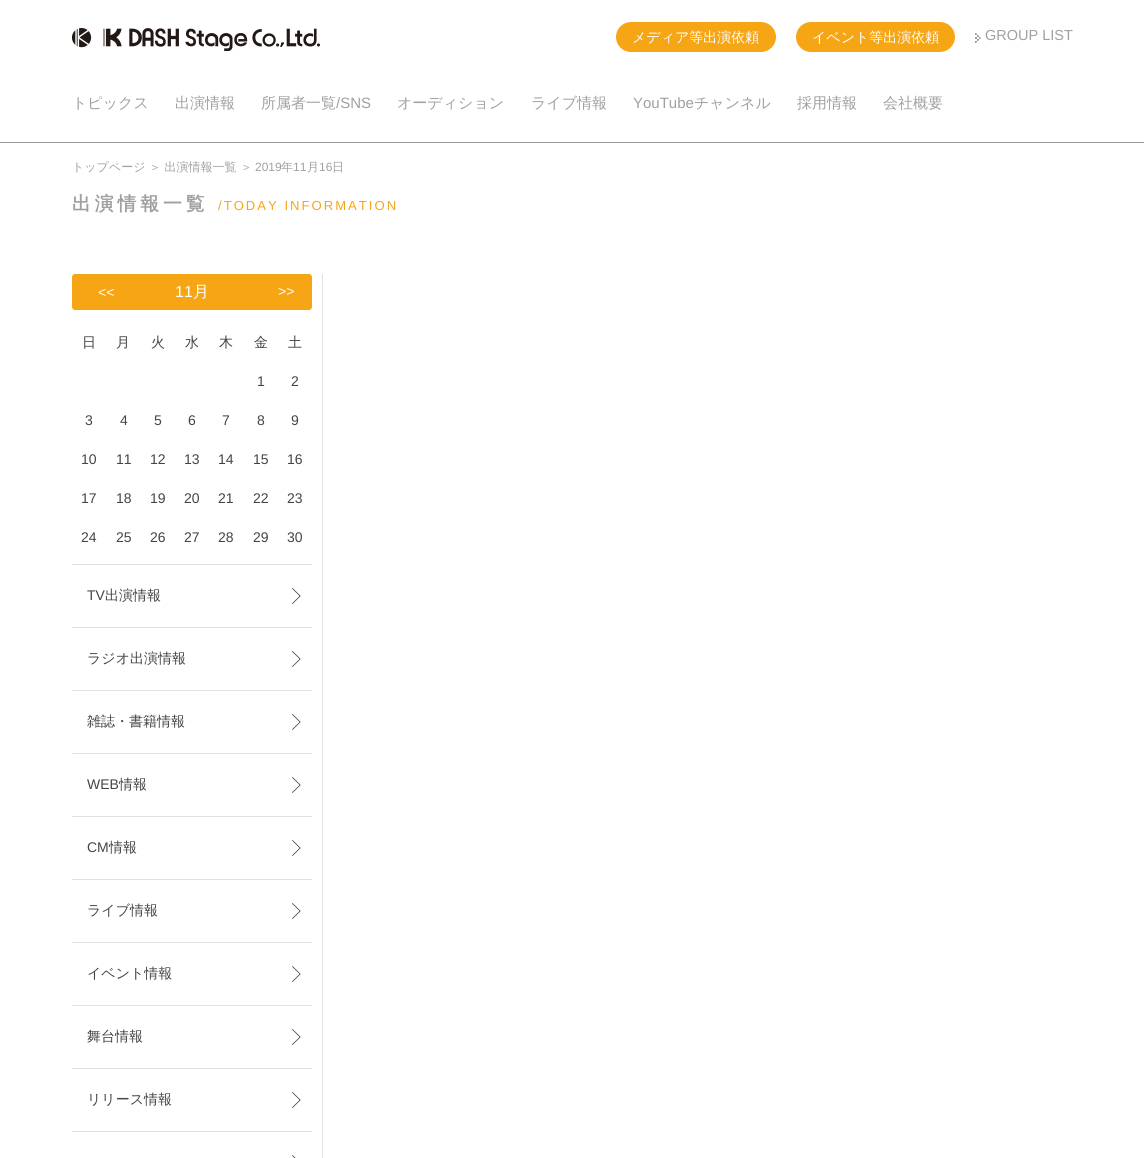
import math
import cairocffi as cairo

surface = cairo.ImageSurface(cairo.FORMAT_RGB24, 1144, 1158)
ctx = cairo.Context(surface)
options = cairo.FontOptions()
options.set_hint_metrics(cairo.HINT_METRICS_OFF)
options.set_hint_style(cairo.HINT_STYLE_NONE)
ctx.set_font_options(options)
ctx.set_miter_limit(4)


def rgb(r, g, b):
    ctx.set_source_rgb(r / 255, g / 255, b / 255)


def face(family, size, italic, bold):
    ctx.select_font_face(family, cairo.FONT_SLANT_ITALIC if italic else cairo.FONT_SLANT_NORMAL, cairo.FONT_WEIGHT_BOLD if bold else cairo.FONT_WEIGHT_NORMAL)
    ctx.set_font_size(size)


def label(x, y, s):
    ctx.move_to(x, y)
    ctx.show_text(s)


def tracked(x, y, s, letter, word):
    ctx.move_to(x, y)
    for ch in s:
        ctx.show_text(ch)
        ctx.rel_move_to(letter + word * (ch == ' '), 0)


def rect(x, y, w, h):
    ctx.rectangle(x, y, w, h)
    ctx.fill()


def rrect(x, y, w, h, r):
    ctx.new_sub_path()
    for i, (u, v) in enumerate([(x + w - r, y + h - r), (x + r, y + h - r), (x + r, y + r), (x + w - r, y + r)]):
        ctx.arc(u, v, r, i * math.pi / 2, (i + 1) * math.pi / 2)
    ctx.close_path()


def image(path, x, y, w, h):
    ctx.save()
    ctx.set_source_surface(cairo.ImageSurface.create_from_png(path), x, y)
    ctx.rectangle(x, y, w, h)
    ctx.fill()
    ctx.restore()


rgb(255, 255, 255)
ctx.paint()
image('image0.png', 72, 28, 248, 23)
rgb(246, 166, 21)
rrect(616, 22, 160, 30, 15)
ctx.fill()
face('WenQuanYi Zen Hei Medium', 14, 0, 0)
rgb(255, 255, 255)
label(632, 42, 'メディア等出演依頼')
rgb(246, 166, 21)
rrect(796, 22, 159, 30, 15)
ctx.fill()
rgb(255, 255, 255)
label(812, 42, 'イベント等出演依頼')
image('image1.png', 975, 33, 6, 10)
face('Liberation Sans', 14.5, 0, 0)
rgb(160, 160, 160)
label(985, 40, 'GROUP LIST')
face('WenQuanYi Zen Hei Medium', 15, 0, 0)
label(72, 108, 'トピックス')
label(175, 108, '出演情報')
label(261, 108, '所属者一覧')
face('Liberation Sans', 15, 0, 0)
label(336, 108, '/SNS')
face('WenQuanYi Zen Hei Medium', 15, 0, 0)
label(397, 108, 'オーディション')
label(531, 108, 'ライブ情報')
face('Liberation Sans', 15, 0, 0)
label(633, 108, 'YouTube')
face('WenQuanYi Zen Hei Medium', 15, 0, 0)
label(694, 108, 'チャンネル')
label(797, 108, '採用情報')
label(883, 108, '会社概要')
rgb(154, 154, 154)
rect(0, 142, 1144, 1)
face('WenQuanYi Zen Hei Medium', 12, 0, 0)
rgb(160, 160, 160)
label(72, 171, 'トップページ ＞ 出演情報一覧 ＞')
face('Liberation Sans', 12, 0, 0)
label(255, 171, '2019')
face('WenQuanYi Zen Hei Medium', 12, 0, 0)
label(281, 171, '年')
face('Liberation Sans', 12, 0, 0)
label(293, 171, '11')
face('WenQuanYi Zen Hei Medium', 12, 0, 0)
label(307, 171, '月')
face('Liberation Sans', 12, 0, 0)
label(319, 171, '16')
face('WenQuanYi Zen Hei Medium', 12, 0, 0)
label(332, 171, '日')
face('WenQuanYi Zen Hei', 18.75, 0, 1)
tracked(72, 210, '出演情報一覧', 4, 0)
face('Liberation Sans', 13.1, 0, 0)
rgb(246, 166, 21)
tracked(218, 210, '/TODAY INFORMATION', 2, 0)
rgb(228, 224, 225)
rect(322, 274, 1, 884)
rect(72, 564, 240, 1)
rgb(246, 166, 21)
rrect(72, 274, 240, 36, 3)
ctx.fill()
face('Liberation Sans', 14, 0, 0)
rgb(255, 255, 255)
label(98, 297, '<<')
face('Liberation Sans', 16, 0, 0)
label(175, 297, '11')
face('WenQuanYi Zen Hei Medium', 16, 0, 0)
label(193, 297, '月')
face('Liberation Sans', 14, 0, 0)
label(278, 296, '>>')
face('WenQuanYi Zen Hei Medium', 14, 0, 0)
rgb(68, 68, 68)
label(82, 347, '日')
label(116, 347, '月')
label(151, 347, '火')
label(185, 347, '水')
label(219, 347, '木')
label(254, 347, '金')
label(288, 347, '土')
face('Liberation Sans', 14, 0, 0)
label(257, 386, '1')
label(291, 386, '2')
label(85, 425, '3')
label(120, 425, '4')
label(154, 425, '5')
label(188, 425, '6')
label(222, 425, '7')
label(257, 425, '8')
label(291, 425, '9')
label(81, 464, '10')
label(116, 464, '11')
label(150, 464, '12')
label(184, 464, '13')
label(218, 464, '14')
label(253, 464, '15')
label(287, 464, '16')
label(81, 503, '17')
label(116, 503, '18')
label(150, 503, '19')
label(184, 503, '20')
label(218, 503, '21')
label(253, 503, '22')
label(287, 503, '23')
label(81, 542, '24')
label(116, 542, '25')
label(150, 542, '26')
label(184, 542, '27')
label(218, 542, '28')
label(253, 542, '29')
label(287, 542, '30')
image('image2.png', 292, 588, 9, 16)
rgb(228, 224, 225)
rect(72, 627, 240, 1)
rgb(68, 68, 68)
label(87, 600, 'TV')
face('WenQuanYi Zen Hei Medium', 14, 0, 0)
label(105, 600, '出演情報')
image('image2.png', 292, 651, 9, 16)
rgb(228, 224, 225)
rect(72, 690, 240, 1)
rgb(68, 68, 68)
label(87, 663, 'ラジオ出演情報')
image('image2.png', 292, 714, 9, 16)
rgb(228, 224, 225)
rect(72, 753, 240, 1)
rgb(68, 68, 68)
label(87, 726, '雑誌・書籍情報')
image('image2.png', 292, 777, 9, 16)
rgb(228, 224, 225)
rect(72, 816, 240, 1)
face('Liberation Sans', 14, 0, 0)
rgb(68, 68, 68)
label(87, 789, 'WEB')
face('WenQuanYi Zen Hei Medium', 14, 0, 0)
label(119, 789, '情報')
image('image2.png', 292, 840, 9, 16)
rgb(228, 224, 225)
rect(72, 879, 240, 1)
face('Liberation Sans', 14, 0, 0)
rgb(68, 68, 68)
label(87, 852, 'CM')
face('WenQuanYi Zen Hei Medium', 14, 0, 0)
label(109, 852, '情報')
image('image2.png', 292, 903, 9, 16)
rgb(228, 224, 225)
rect(72, 942, 240, 1)
rgb(68, 68, 68)
label(87, 915, 'ライブ情報')
image('image2.png', 292, 966, 9, 16)
rgb(228, 224, 225)
rect(72, 1005, 240, 1)
rgb(68, 68, 68)
label(87, 978, 'イベント情報')
image('image2.png', 292, 1029, 9, 16)
rgb(228, 224, 225)
rect(72, 1068, 240, 1)
rgb(68, 68, 68)
label(87, 1041, '舞台情報')
image('image2.png', 292, 1092, 9, 16)
rgb(228, 224, 225)
rect(72, 1131, 240, 1)
rgb(68, 68, 68)
label(87, 1104, 'リリース情報')
image('image3.png', 292, 1155, 4, 3)
surface.write_to_png('render.png')
